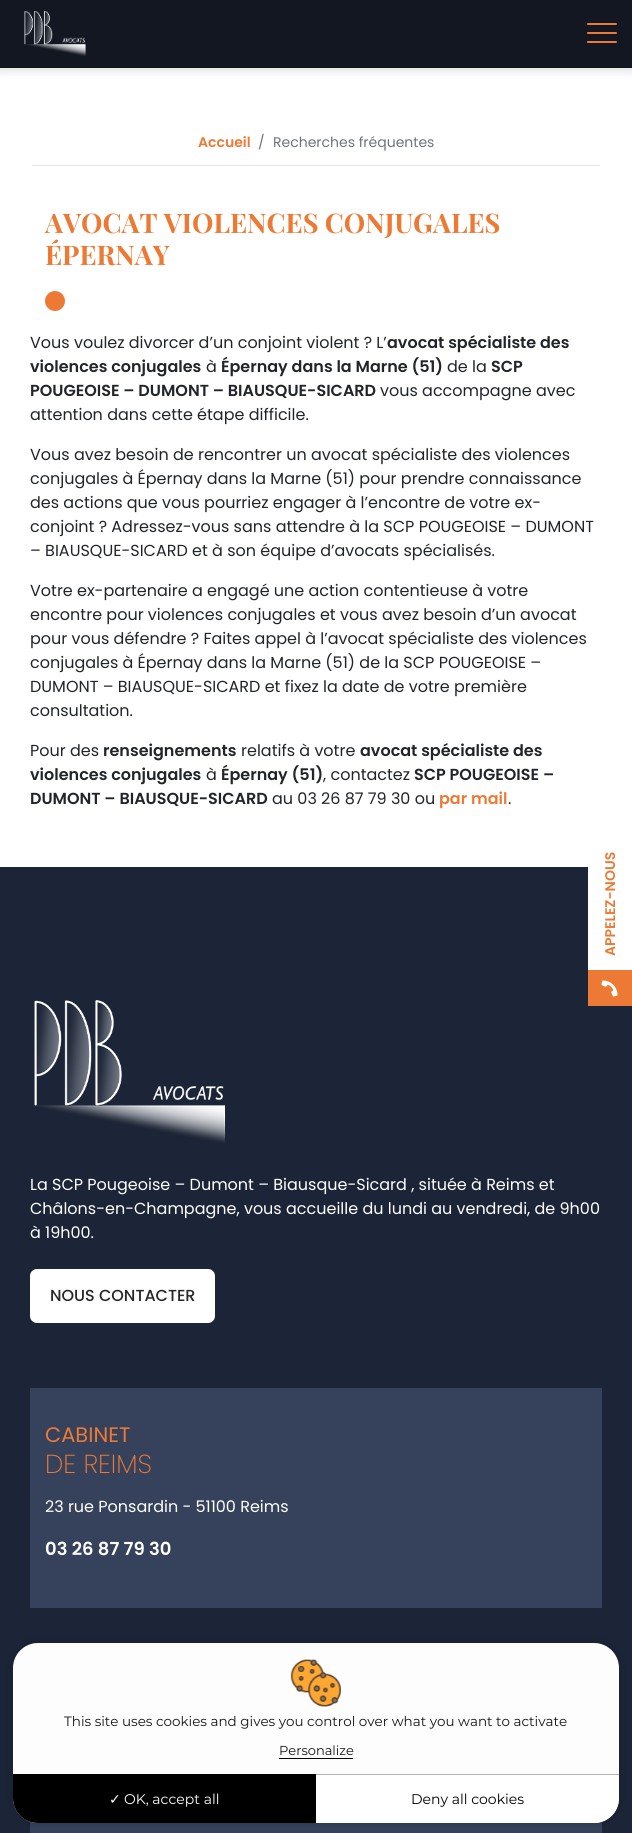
import math
import cairocffi as cairo

surface = cairo.ImageSurface(cairo.FORMAT_RGB24, 632, 1833)
ctx = cairo.Context(surface)
options = cairo.FontOptions()
options.set_hint_metrics(cairo.HINT_METRICS_OFF)
options.set_hint_style(cairo.HINT_STYLE_NONE)
ctx.set_font_options(options)
ctx.set_miter_limit(4)


def rgb(r, g, b):
    ctx.set_source_rgb(r / 255, g / 255, b / 255)


def face(family, size, italic, bold):
    ctx.select_font_face(family, cairo.FONT_SLANT_ITALIC if italic else cairo.FONT_SLANT_NORMAL, cairo.FONT_WEIGHT_BOLD if bold else cairo.FONT_WEIGHT_NORMAL)
    ctx.set_font_size(size)


def label(x, y, s):
    ctx.move_to(x, y)
    ctx.show_text(s)


def rect(x, y, w, h):
    ctx.rectangle(x, y, w, h)
    ctx.fill()


def rrect(x, y, w, h, r):
    ctx.new_sub_path()
    for i, (u, v) in enumerate([(x + w - r, y + h - r), (x + r, y + h - r), (x + r, y + r), (x + w - r, y + r)]):
        ctx.arc(u, v, r, i * math.pi / 2, (i + 1) * math.pi / 2)
    ctx.close_path()


def soft_shadow(x, y, w, h, r, blur, alpha):
    ctx.push_group_with_content(cairo.CONTENT_ALPHA)
    ctx.set_operator(cairo.OPERATOR_SOURCE)
    for i in range(15, -16, -2):
        e = blur * i / 6
        if min(w, h) + 2 * e > 0:
            ctx.set_source_rgba(0, 0, 0, alpha * math.erfc((i - 1) / 8.5) / 2)
            rrect(x - e, y - e, w + 2 * e, h + 2 * e, max(0, min(r + e + blur * .6, min(w, h) / 2 + e)))
            ctx.fill()
    ctx.mask(ctx.pop_group())


def image(path, x, y, w, h):
    ctx.save()
    ctx.set_source_surface(cairo.ImageSurface.create_from_png(path), x, y)
    ctx.rectangle(x, y, w, h)
    ctx.fill()
    ctx.restore()


rgb(255, 255, 255)
ctx.paint()
rgb(0, 0, 0)
soft_shadow(-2, -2, 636, 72, 0, 5, 0.15)
rgb(18, 23, 34)
rect(0, 0, 632, 68)
image('image0.png', 24, 10, 62, 46)
rgb(236, 122, 53)
rrect(587, 32, 30, 2, 1)
ctx.fill()
rrect(587, 23, 30, 2, 1)
ctx.fill()
rrect(587, 41, 30, 2, 1)
ctx.fill()
rgb(230, 230, 230)
rect(32, 165, 568, 1)
face('Poppins SemiBold', 14, 0, 0)
rgb(236, 122, 53)
label(198, 147, 'Accueil')
face('Poppins', 14, 0, 0)
rgb(108, 117, 125)
label(258, 147, '/')
label(273, 147, 'Recherches fréquentes')
face('Playfair Display', 27, 0, 1)
rgb(236, 122, 53)
label(45, 233, 'AVOCAT VIOLENCES CONJUGALES')
label(45, 265, 'ÉPERNAY')
ctx.new_path()
ctx.arc(55, 301, 10, 0, 2 * math.pi)
ctx.fill()
face('Poppins', 16, 0, 0)
rgb(33, 37, 41)
label(30, 348, 'Vous voulez divorcer d’un conjoint violent ? L’')
face('Poppins SemiBold', 16, 0, 0)
label(387, 348, 'avocat spécialiste des')
label(30, 372, 'violences conjugales')
face('Poppins', 16, 0, 0)
label(206, 372, 'à')
face('Poppins SemiBold', 16, 0, 0)
label(221, 372, 'Épernay dans la Marne (51)')
face('Poppins', 16, 0, 0)
label(447, 372, 'de la')
face('Poppins SemiBold', 16, 0, 0)
label(491, 372, 'SCP')
label(30, 396, 'POUGEOISE – DUMONT – BIAUSQUE-SICARD')
face('Poppins', 16, 0, 0)
label(380, 396, 'vous accompagne avec')
label(30, 420, 'attention dans cette étape difficile.')
label(30, 460, 'Vous avez besoin de rencontrer un avocat spécialiste des violences')
label(30, 484, 'conjugales à Épernay dans la Marne (51) pour prendre connaissance')
label(30, 508, 'des actions que vous pourriez engager à l’encontre de votre ex-')
label(30, 532, 'conjoint ? Adressez-vous sans attendre à la SCP POUGEOISE – DUMONT')
label(30, 556, '– BIAUSQUE-SICARD et à son équipe d’avocats spécialisés.')
label(30, 596, 'Votre ex-partenaire a engagé une action contentieuse à votre')
label(30, 620, 'encontre pour violences conjugales et vous avez besoin d’un avocat')
label(30, 644, 'pour vous défendre ? Faites appel à l’avocat spécialiste des violences')
label(30, 668, 'conjugales à Épernay dans la Marne (51) de la SCP POUGEOISE –')
label(30, 692, 'DUMONT – BIAUSQUE-SICARD et fixez la date de votre première')
label(30, 716, 'consultation.')
label(30, 756, 'Pour des')
face('Poppins SemiBold', 16, 0, 0)
label(103, 756, 'renseignements')
face('Poppins', 16, 0, 0)
label(241, 756, 'relatifs à votre')
face('Poppins SemiBold', 16, 0, 0)
label(360, 756, 'avocat spécialiste des')
label(30, 780, 'violences conjugales')
face('Poppins', 16, 0, 0)
label(206, 780, 'à')
face('Poppins SemiBold', 16, 0, 0)
label(221, 780, 'Épernay (51)')
face('Poppins', 16, 0, 0)
label(323, 780, ', contactez')
face('Poppins SemiBold', 16, 0, 0)
label(414, 780, 'SCP POUGEOISE –')
label(30, 804, 'DUMONT – BIAUSQUE-SICARD')
face('Poppins', 16, 0, 0)
label(272, 804, 'au 03 26 87 79 30 ou')
face('Poppins SemiBold', 16, 0, 0)
rgb(236, 122, 53)
label(439, 804, 'par mail')
face('Poppins', 16, 0, 0)
rgb(33, 37, 41)
label(508, 804, '.')
rgb(28, 37, 56)
rect(0, 867, 632, 966)
rgb(255, 255, 255)
rect(588, 867, 44, 103)
face('Poppins SemiBold', 14, 0, 0)
rgb(236, 122, 53)
ctx.save()
ctx.translate(615, 956)
ctx.rotate(-90 * math.pi / 180)
label(0, 0, 'APPELEZ-NOUS')
ctx.restore()
rect(588, 970, 44, 36)
image('image1.png', 601, 980, 17, 17)
image('image2.png', 34, 1000, 191, 144)
face('Poppins', 16, 0, 0)
rgb(255, 255, 255)
label(30, 1190, 'La SCP Pougeoise – Dumont – Biausque-Sicard , située à Reims et')
label(30, 1214, 'Châlons-en-Champagne, vous accueille du lundi au vendredi, de 9h00')
label(30, 1238, 'à 19h00.')
rrect(30, 1269, 185, 54, 7)
ctx.fill()
face('Poppins Medium', 16, 0, 0)
rgb(40, 39, 39)
label(50, 1301, 'NOUS CONTACTER')
rgb(54, 66, 91)
rect(30, 1388, 572, 220)
face('Poppins', 21, 0, 0)
rgb(236, 122, 53)
label(45, 1442, 'CABINET')
face('Poppins ExtraLight', 26, 0, 0)
label(45, 1473, 'DE REIMS')
face('Poppins', 16, 0, 0)
rgb(255, 255, 255)
label(45, 1512, '23 rue Ponsardin - 51100 Reims')
face('Poppins SemiBold', 18, 0, 0)
label(45, 1555, '03 26 87 79 30')
rgb(54, 66, 91)
rect(30, 1821, 572, 12)
rgb(0, 0, 0)
soft_shadow(11, 1641, 610, 184, 27, 3.5, 0.15)
rgb(253, 253, 253)
rrect(13, 1643, 606, 180, 25)
ctx.fill()
image('image3.png', 290, 1659, 51, 48)
face('Montserrat', 13.5, 0, 0)
rgb(20, 20, 20)
label(64, 1726, 'This site uses cookies and gives you control over what you want to activate')
rgb(0, 0, 0)
rect(279, 1758, 74, 1)
face('Montserrat', 13, 0, 0)
rgb(20, 20, 20)
label(279, 1755, 'Personalize')
rgb(0, 0, 0)
ctx.new_path()
ctx.move_to(13, 1774)
ctx.line_to(316, 1774)
ctx.line_to(316, 1823)
ctx.line_to(38, 1823)
ctx.curve_to(24, 1823, 13, 1812, 13, 1798)
ctx.close_path()
ctx.fill()
face('DejaVu Sans', 14, 0, 0)
rgb(255, 255, 255)
label(109, 1804, '✓')
face('Montserrat', 14, 0, 0)
label(124, 1804, 'OK, accept all')
ctx.new_path()
ctx.move_to(316, 1774)
ctx.line_to(619, 1774)
ctx.line_to(619, 1798)
ctx.curve_to(619, 1812, 608, 1823, 594, 1823)
ctx.line_to(316, 1823)
ctx.close_path()
ctx.fill()
rgb(179, 179, 179)
rect(316, 1774, 303, 1)
rgb(0, 0, 0)
label(411, 1804, 'Deny all cookies')
surface.write_to_png('render.png')
